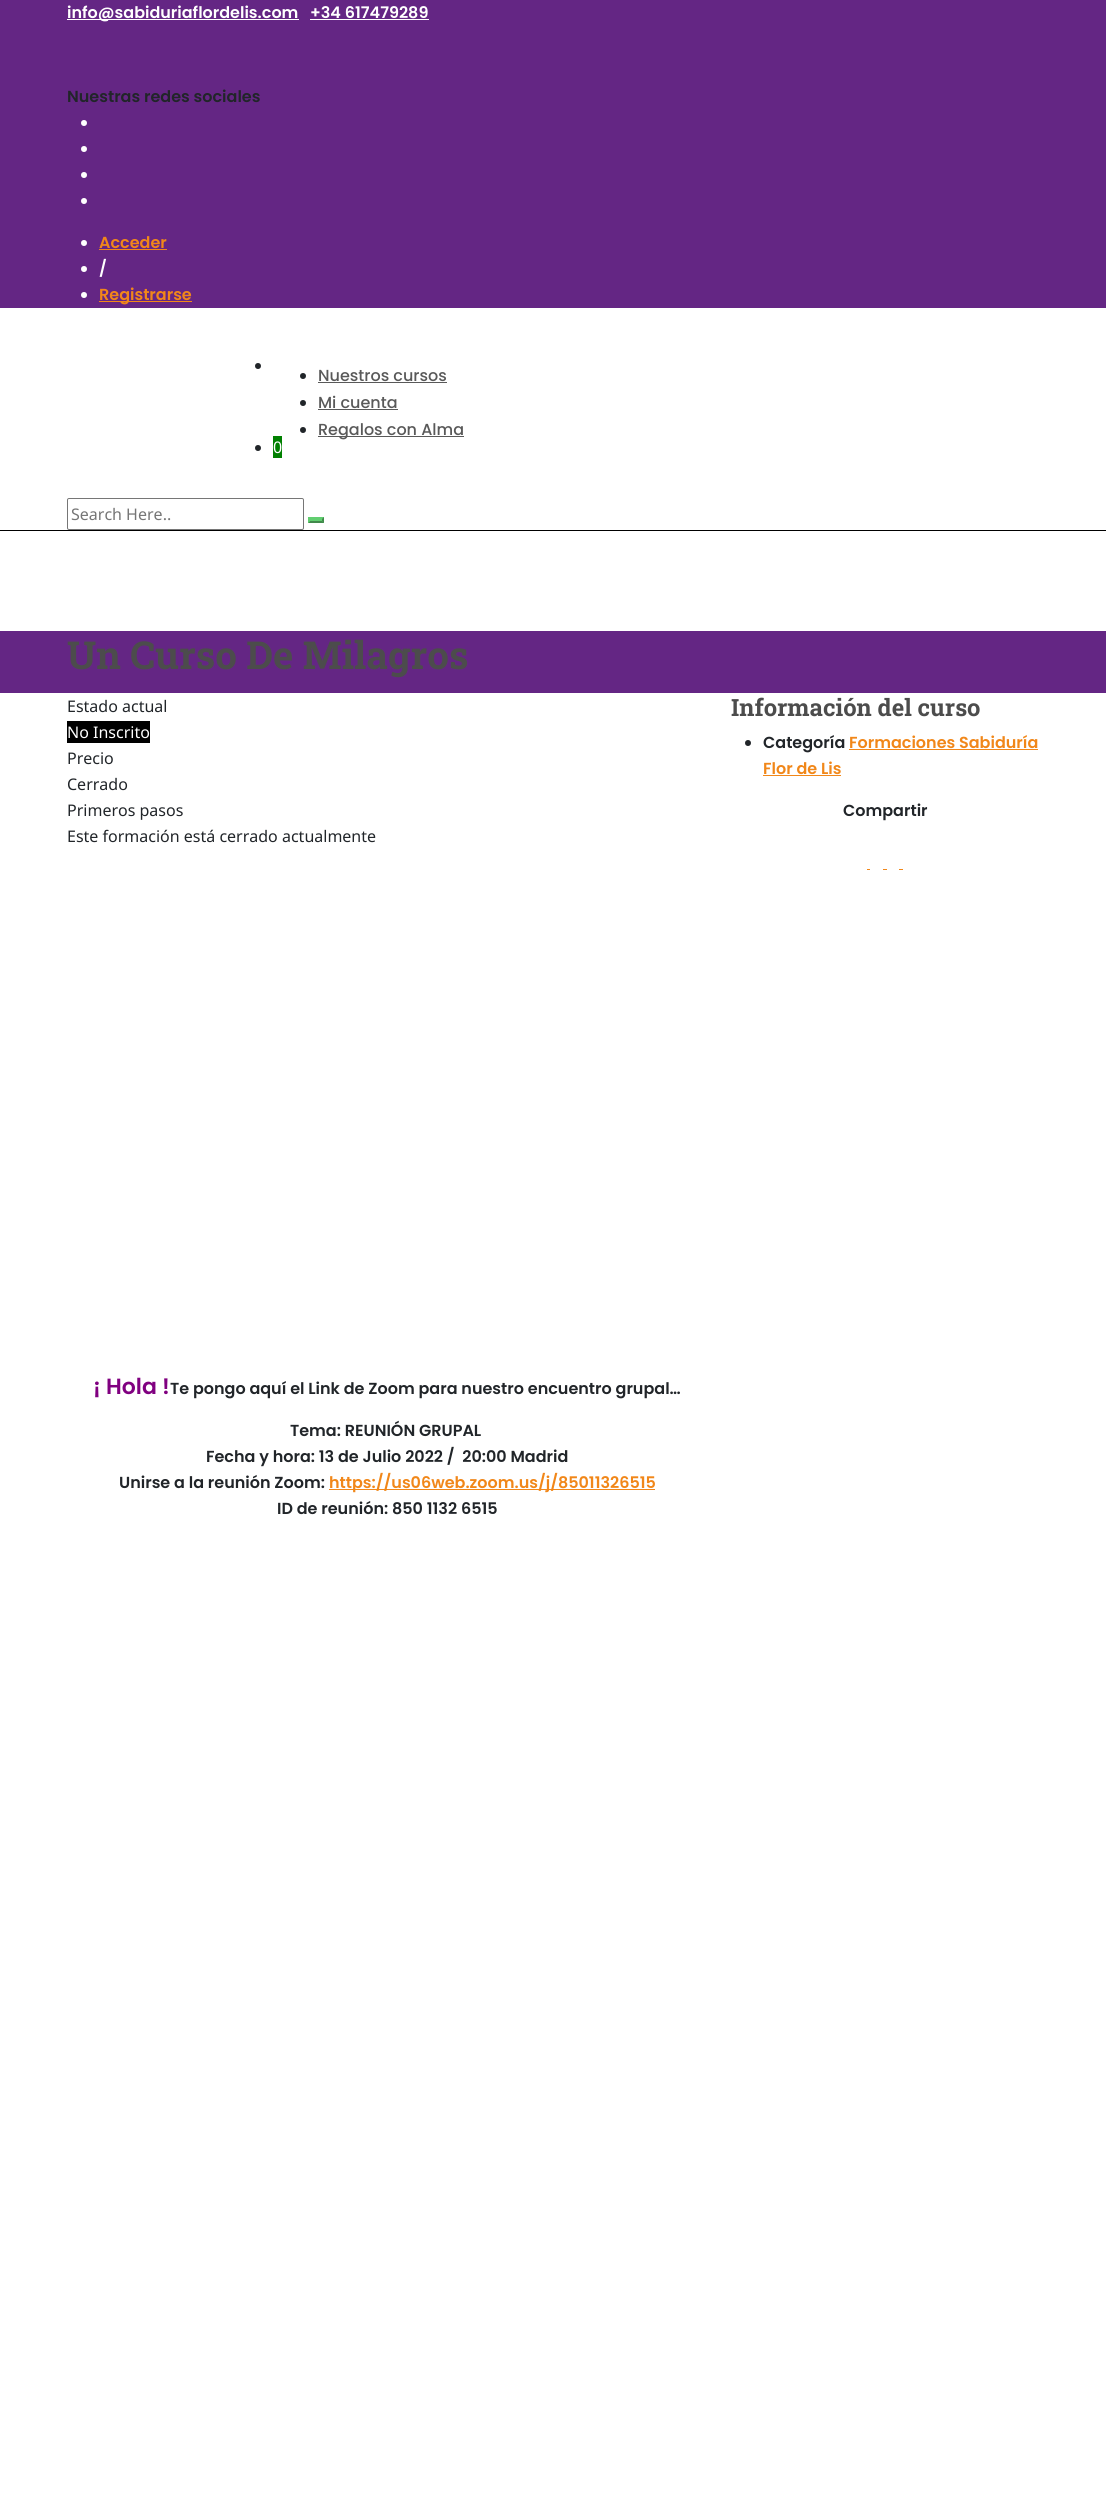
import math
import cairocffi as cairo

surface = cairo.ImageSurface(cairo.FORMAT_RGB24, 1106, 2508)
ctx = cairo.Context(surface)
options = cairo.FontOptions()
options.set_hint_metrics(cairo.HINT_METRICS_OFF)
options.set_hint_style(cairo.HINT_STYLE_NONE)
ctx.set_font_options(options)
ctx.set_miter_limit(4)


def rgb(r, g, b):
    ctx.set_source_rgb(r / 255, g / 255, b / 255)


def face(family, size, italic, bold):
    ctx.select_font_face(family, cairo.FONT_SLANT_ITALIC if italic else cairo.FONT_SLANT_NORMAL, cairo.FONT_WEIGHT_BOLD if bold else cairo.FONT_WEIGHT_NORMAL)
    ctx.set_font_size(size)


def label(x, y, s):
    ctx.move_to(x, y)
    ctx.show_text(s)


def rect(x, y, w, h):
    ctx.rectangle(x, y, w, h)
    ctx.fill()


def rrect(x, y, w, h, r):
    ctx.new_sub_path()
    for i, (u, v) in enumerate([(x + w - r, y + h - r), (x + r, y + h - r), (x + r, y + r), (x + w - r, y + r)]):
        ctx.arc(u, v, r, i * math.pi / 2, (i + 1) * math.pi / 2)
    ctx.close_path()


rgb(255, 255, 255)
ctx.paint()
rgb(0, 0, 0)
rect(0, 530, 1106, 1)
rgb(100, 38, 132)
rect(0, 0, 1106, 308)
rgb(255, 255, 255)
rect(67, 19, 232, 1)
face('Poppins SemiBold', 16, 0, 0)
label(67, 18, 'info@sabiduriaflordelis.com')
label(310, 18, '+34 617479289')
rect(310, 19, 119, 1)
rgb(33, 37, 41)
label(67, 102, 'Nuestras redes sociales')
rgb(255, 255, 255)
ctx.new_path()
ctx.arc(84, 123, 3, 0, 2 * math.pi)
ctx.fill()
ctx.arc(84, 149, 3, 0, 2 * math.pi)
ctx.fill()
ctx.arc(84, 175, 3, 0, 2 * math.pi)
ctx.fill()
ctx.arc(84, 201, 3, 0, 2 * math.pi)
ctx.fill()
ctx.arc(84, 243, 3, 0, 2 * math.pi)
ctx.fill()
rgb(241, 135, 25)
label(99, 248, 'Acceder')
rect(99, 249, 68, 1)
rgb(255, 255, 255)
ctx.new_path()
ctx.arc(84, 269, 3, 0, 2 * math.pi)
ctx.fill()
label(99, 274, '/')
ctx.new_path()
ctx.arc(84, 295, 3, 0, 2 * math.pi)
ctx.fill()
rgb(241, 135, 25)
rect(99, 301, 93, 1)
label(99, 300, 'Registrarse')
rgb(33, 37, 41)
ctx.new_path()
ctx.arc(303, 376, 3, 0, 2 * math.pi)
ctx.fill()
face('Poppins Medium', 16, 0, 0)
rgb(89, 89, 89)
label(318, 381, 'Nuestros cursos')
rect(318, 382, 129, 1)
rgb(33, 37, 41)
ctx.new_path()
ctx.arc(303, 403, 3, 0, 2 * math.pi)
ctx.fill()
rgb(89, 89, 89)
label(318, 408, 'Mi cuenta')
rect(318, 409, 80, 1)
rgb(33, 37, 41)
ctx.new_path()
ctx.arc(303, 430, 3, 0, 2 * math.pi)
ctx.fill()
rgb(89, 89, 89)
rect(318, 436, 146, 1)
label(318, 435, 'Regalos con Alma')
rgb(33, 37, 41)
ctx.new_path()
ctx.arc(258, 366, 3, 0, 2 * math.pi)
ctx.fill()
ctx.arc(258, 448, 3, 0, 2 * math.pi)
ctx.fill()
rgb(0, 128, 0)
rect(273, 436, 9, 22)
face('Noto Sans', 16, 0, 0)
rgb(255, 255, 255)
label(273, 453, '0')
rrect(67.5, 498.5, 236, 31, 1.5)
rgb(118, 118, 118)
ctx.set_line_width(1)
ctx.stroke()
rgb(117, 117, 117)
label(71, 520, 'Search Here..')
rgb(97, 206, 112)
rect(308, 517, 16, 6)
rgb(65, 137, 75)
ctx.new_path()
ctx.move_to(324, 517)
ctx.line_to(324, 523)
ctx.line_to(322, 521)
ctx.line_to(322, 519)
ctx.close_path()
ctx.fill()
ctx.new_path()
ctx.move_to(324, 523)
ctx.line_to(308, 523)
ctx.line_to(310, 521)
ctx.line_to(322, 521)
ctx.close_path()
ctx.fill()
rgb(97, 206, 112)
ctx.new_path()
ctx.move_to(308, 523)
ctx.line_to(308, 517)
ctx.line_to(310, 519)
ctx.line_to(310, 521)
ctx.close_path()
ctx.fill()
rgb(100, 38, 132)
rect(0, 631, 1106, 62)
face('Roboto Slab', 38.5, 0, 1)
rgb(76, 76, 76)
label(67, 669, 'Un Curso De Milagros')
face('Noto Sans', 16, 0, 0)
rgb(33, 37, 41)
label(67, 712, 'Estado actual')
rgb(0, 0, 0)
rect(67, 721, 83, 22)
rgb(255, 255, 255)
label(67, 738, 'No Inscrito')
rgb(33, 37, 41)
label(67, 764, 'Precio')
label(67, 790, 'Cerrado')
label(67, 816, 'Primeros pasos')
label(67, 842, 'Este formación está cerrado actualmente')
face('Poppins SemiBold', 22, 0, 0)
rgb(128, 0, 128)
label(93, 1394, '¡ Hola !')
face('Poppins SemiBold', 16, 0, 0)
rgb(33, 37, 41)
label(170, 1394, 'Te pongo aquí el Link de Zoom para nuestro encuentro grupal…')
label(290, 1436, 'Tema: REUNIÓN GRUPAL')
label(206, 1462, 'Fecha y hora: 13 de Julio 2022 /  20:00 Madrid')
label(119, 1488, 'Unirse a la reunión Zoom:')
rgb(241, 135, 25)
rect(329, 1489, 326, 1)
label(329, 1488, 'https://us06web.zoom.us/j/85011326515')
rgb(33, 37, 41)
label(277, 1514, 'ID de reunión: 850 1132 6515')
face('Roboto Slab', 23.75, 0, 1)
rgb(76, 76, 76)
label(731, 716, 'Información del curso')
rgb(33, 37, 41)
ctx.new_path()
ctx.arc(748, 743, 3, 0, 2 * math.pi)
ctx.fill()
face('Poppins SemiBold', 16, 0, 0)
label(763, 748, 'Categoría')
rgb(241, 135, 25)
label(849, 748, 'Formaciones Sabiduría')
rect(849, 749, 189, 1)
label(763, 774, 'Flor de Lis')
rect(763, 775, 78, 1)
rgb(33, 37, 41)
label(843, 816, 'Compartir')
rgb(241, 135, 25)
rect(867, 869, 3, 1)
rect(883, 869, 4, 1)
rect(899, 869, 4, 1)
surface.write_to_png('render.png')
